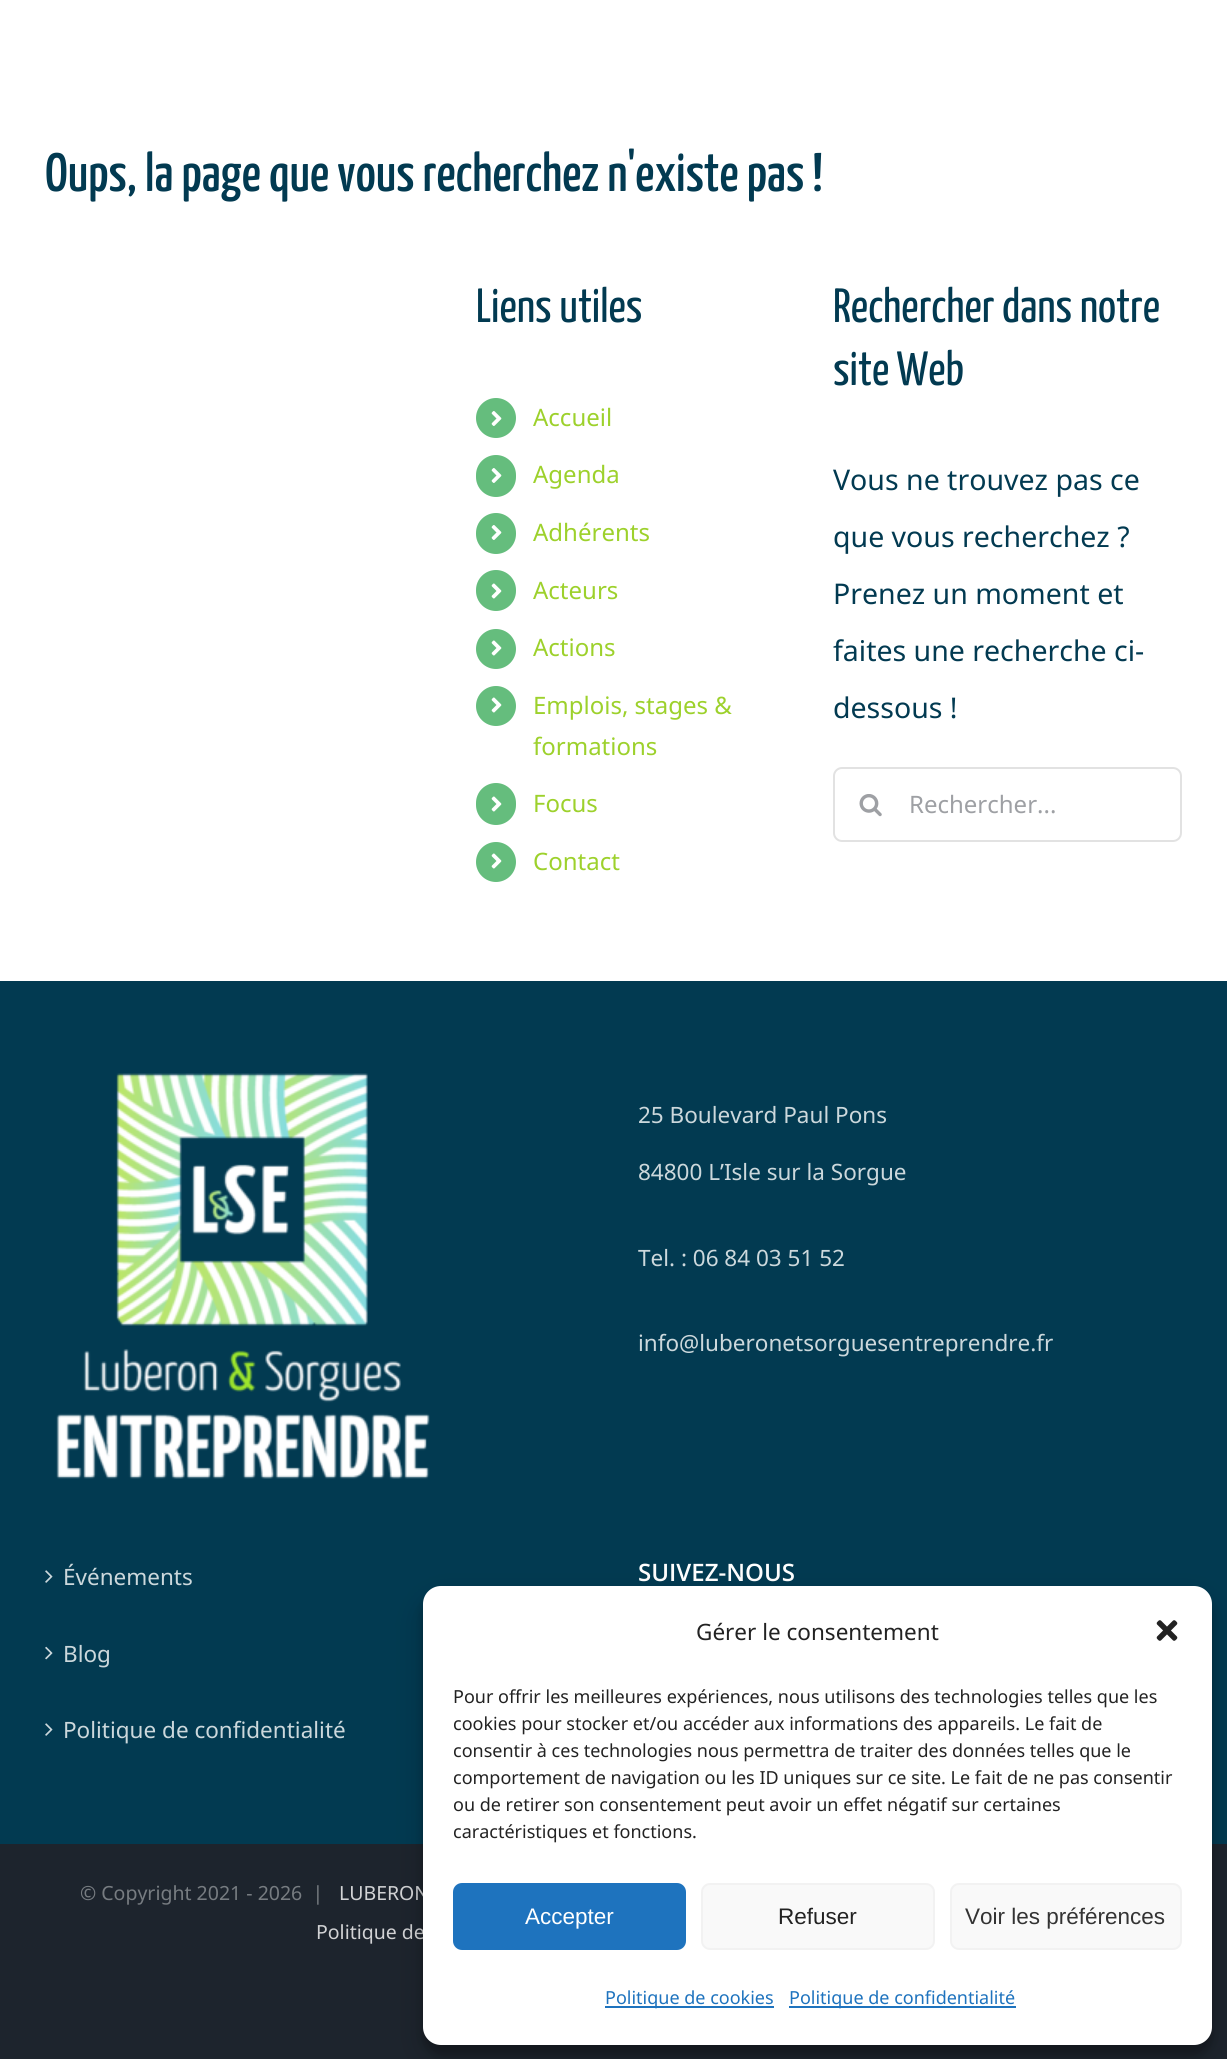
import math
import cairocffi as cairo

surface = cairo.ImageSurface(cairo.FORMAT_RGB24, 1227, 2059)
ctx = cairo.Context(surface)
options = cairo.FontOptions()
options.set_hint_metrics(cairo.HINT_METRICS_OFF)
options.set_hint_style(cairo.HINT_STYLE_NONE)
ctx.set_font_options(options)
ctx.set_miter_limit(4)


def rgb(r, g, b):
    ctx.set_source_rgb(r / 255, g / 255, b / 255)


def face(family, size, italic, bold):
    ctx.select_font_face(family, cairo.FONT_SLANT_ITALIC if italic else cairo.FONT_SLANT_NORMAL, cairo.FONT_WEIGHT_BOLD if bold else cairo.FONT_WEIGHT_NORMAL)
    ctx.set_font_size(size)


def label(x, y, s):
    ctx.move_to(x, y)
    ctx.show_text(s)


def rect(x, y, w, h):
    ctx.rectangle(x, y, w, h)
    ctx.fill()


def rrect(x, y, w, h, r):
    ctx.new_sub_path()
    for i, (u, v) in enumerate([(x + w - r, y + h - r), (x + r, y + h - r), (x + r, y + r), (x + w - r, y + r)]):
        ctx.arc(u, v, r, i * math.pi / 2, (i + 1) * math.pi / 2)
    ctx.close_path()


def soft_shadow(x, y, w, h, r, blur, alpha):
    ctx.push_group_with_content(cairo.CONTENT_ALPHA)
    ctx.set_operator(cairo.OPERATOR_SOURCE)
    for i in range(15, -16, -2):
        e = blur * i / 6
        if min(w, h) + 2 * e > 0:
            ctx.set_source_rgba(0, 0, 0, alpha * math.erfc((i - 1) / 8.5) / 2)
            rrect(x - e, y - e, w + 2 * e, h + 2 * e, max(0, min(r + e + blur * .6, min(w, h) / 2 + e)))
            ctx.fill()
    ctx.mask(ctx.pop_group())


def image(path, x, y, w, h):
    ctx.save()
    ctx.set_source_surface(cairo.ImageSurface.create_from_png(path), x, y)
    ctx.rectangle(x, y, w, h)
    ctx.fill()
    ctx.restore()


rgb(255, 255, 255)
ctx.paint()
face('Yanone Kaffeesatz Medium', 54, 0, 0)
rgb(2, 58, 81)
label(45, 191, 'Oups, la page que vous recherchez n\'existe pas !')
face('Yanone Kaffeesatz', 48, 0, 0)
label(476, 322, 'Liens utiles')
rgb(101, 189, 125)
ctx.new_path()
ctx.arc(496, 418, 20, 0, 2 * math.pi)
ctx.fill()
image('image0.png', 491, 411, 11, 15)
face('Noto Sans', 24, 0, 0)
rgb(157, 209, 44)
label(533, 426, 'Accueil')
rgb(101, 189, 125)
rrect(476, 455, 40, 42, 20)
ctx.fill()
image('image0.png', 491, 468, 11, 15)
rgb(157, 209, 44)
label(533, 483, 'Agenda')
rgb(101, 189, 125)
rrect(476, 513, 40, 41, 20)
ctx.fill()
image('image0.png', 491, 525, 11, 15)
rgb(157, 209, 44)
label(533, 541, 'Adhérents')
rgb(101, 189, 125)
rrect(476, 570, 40, 41, 20)
ctx.fill()
image('image1.png', 491, 583, 11, 16)
rgb(157, 209, 44)
label(533, 599, 'Acteurs')
rgb(101, 189, 125)
ctx.new_path()
ctx.arc(496, 649, 20, 0, 2 * math.pi)
ctx.fill()
image('image1.png', 491, 640, 11, 16)
rgb(157, 209, 44)
label(533, 656, 'Actions')
rgb(101, 189, 125)
ctx.new_path()
ctx.arc(496, 706, 20, 0, 2 * math.pi)
ctx.fill()
image('image1.png', 491, 697, 11, 16)
rgb(157, 209, 44)
label(533, 714, 'Emplois, stages &')
label(533, 755, 'formations')
rgb(101, 189, 125)
rrect(476, 783, 40, 42, 20)
ctx.fill()
image('image1.png', 491, 796, 11, 16)
rgb(157, 209, 44)
label(533, 812, 'Focus')
rgb(101, 189, 125)
ctx.new_path()
ctx.arc(496, 862, 20, 0, 2 * math.pi)
ctx.fill()
image('image1.png', 491, 853, 11, 16)
rgb(157, 209, 44)
label(533, 870, 'Contact')
face('Yanone Kaffeesatz', 48, 0, 0)
rgb(2, 58, 81)
label(833, 322, 'Rechercher dans notre')
label(833, 385, 'site Web')
face('Noto Sans', 28.5, 0, 0)
label(833, 490, 'Vous ne trouvez pas ce')
label(833, 547, 'que vous recherchez ?')
label(833, 604, 'Prenez un moment et')
label(833, 661, 'faites une recherche ci-')
label(833, 718, 'dessous !')
rrect(834, 768, 347, 73, 8)
rgb(226, 226, 226)
ctx.stroke()
image('image2.png', 859, 794, 23, 23)
face('Noto Sans', 24, 0, 0)
rgb(158, 160, 164)
label(909, 813, 'Rechercher...')
rgb(2, 58, 81)
rect(0, 981, 1227, 863)
image('image3.png', 56, 1073, 374, 406)
face('Noto Sans', 22.5, 0, 0)
rgb(204, 216, 220)
label(638, 1123, '25 Boulevard Paul Pons')
label(638, 1180, '84800 L’Isle sur la Sorgue')
label(638, 1266, 'Tel. : 06 84 03 51 52')
label(638, 1351, 'info@luberonetsorguesentreprendre.fr')
image('image4.png', 45, 1570, 8, 13)
label(63, 1585, 'Événements')
image('image5.png', 45, 1646, 8, 14)
label(63, 1662, 'Blog')
image('image4.png', 45, 1723, 8, 13)
label(63, 1738, 'Politique de confidentialité')
face('Open Sans SemiBold', 24, 0, 0)
rgb(255, 255, 255)
label(638, 1581, 'SUIVEZ-NOUS')
rgb(29, 36, 45)
rect(0, 1844, 1227, 215)
face('Noto Sans', 19.5, 0, 0)
rgb(119, 124, 129)
label(80, 1900, '© Copyright 2021 - 2026  |')
rgb(210, 211, 213)
label(339, 1900, 'LUBERON')
label(316, 1939, 'Politique de')
rgb(0, 0, 0)
soft_shadow(423, 1595, 789, 459, 18, 4.5, 0.23)
soft_shadow(423, 1601, 789, 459, 18, 15, 0.19)
rgb(255, 255, 255)
rrect(423, 1586, 789, 459, 18)
ctx.fill()
face('Noto Sans', 22.5, 0, 0)
rgb(34, 34, 34)
label(696, 1640, 'Gérer le consentement')
image('image6.png', 1156, 1620, 22, 21)
face('Noto Sans', 18, 0, 0)
label(453, 1703, 'Pour offrir les meilleures expériences, nous utilisons des technologies telles que les')
label(453, 1730, 'cookies pour stocker et/ou accéder aux informations des appareils. Le fait de')
label(453, 1757, 'consentir à ces technologies nous permettra de traiter des données telles que le')
label(453, 1784, 'comportement de navigation ou les ID uniques sur ce site. Le fait de ne pas consentir')
label(453, 1811, 'ou de retirer son consentement peut avoir un effet négatif sur certaines')
label(453, 1838, 'caractéristiques et fonctions.')
rgb(30, 115, 190)
rrect(454, 1884, 231, 65, 8)
ctx.fill_preserve()
ctx.stroke()
face('Liberation Sans', 22.5, 0, 0)
rgb(255, 255, 255)
label(525, 1924, 'Accepter')
rgb(249, 249, 249)
rrect(702, 1884, 232, 65, 8)
ctx.fill_preserve()
rgb(242, 242, 242)
ctx.stroke()
rgb(34, 34, 34)
label(778, 1924, 'Refuser')
rgb(249, 249, 249)
rrect(951, 1884, 230, 65, 8)
ctx.fill_preserve()
rgb(242, 242, 242)
ctx.stroke()
rgb(51, 51, 51)
label(965, 1924, 'Voir les préférences')
rgb(30, 115, 190)
rect(605, 2006, 169, 2)
face('Noto Sans', 18, 0, 0)
label(605, 2004, 'Politique de cookies')
rect(789, 2006, 227, 2)
label(789, 2004, 'Politique de confidentialité')
surface.write_to_png('render.png')
